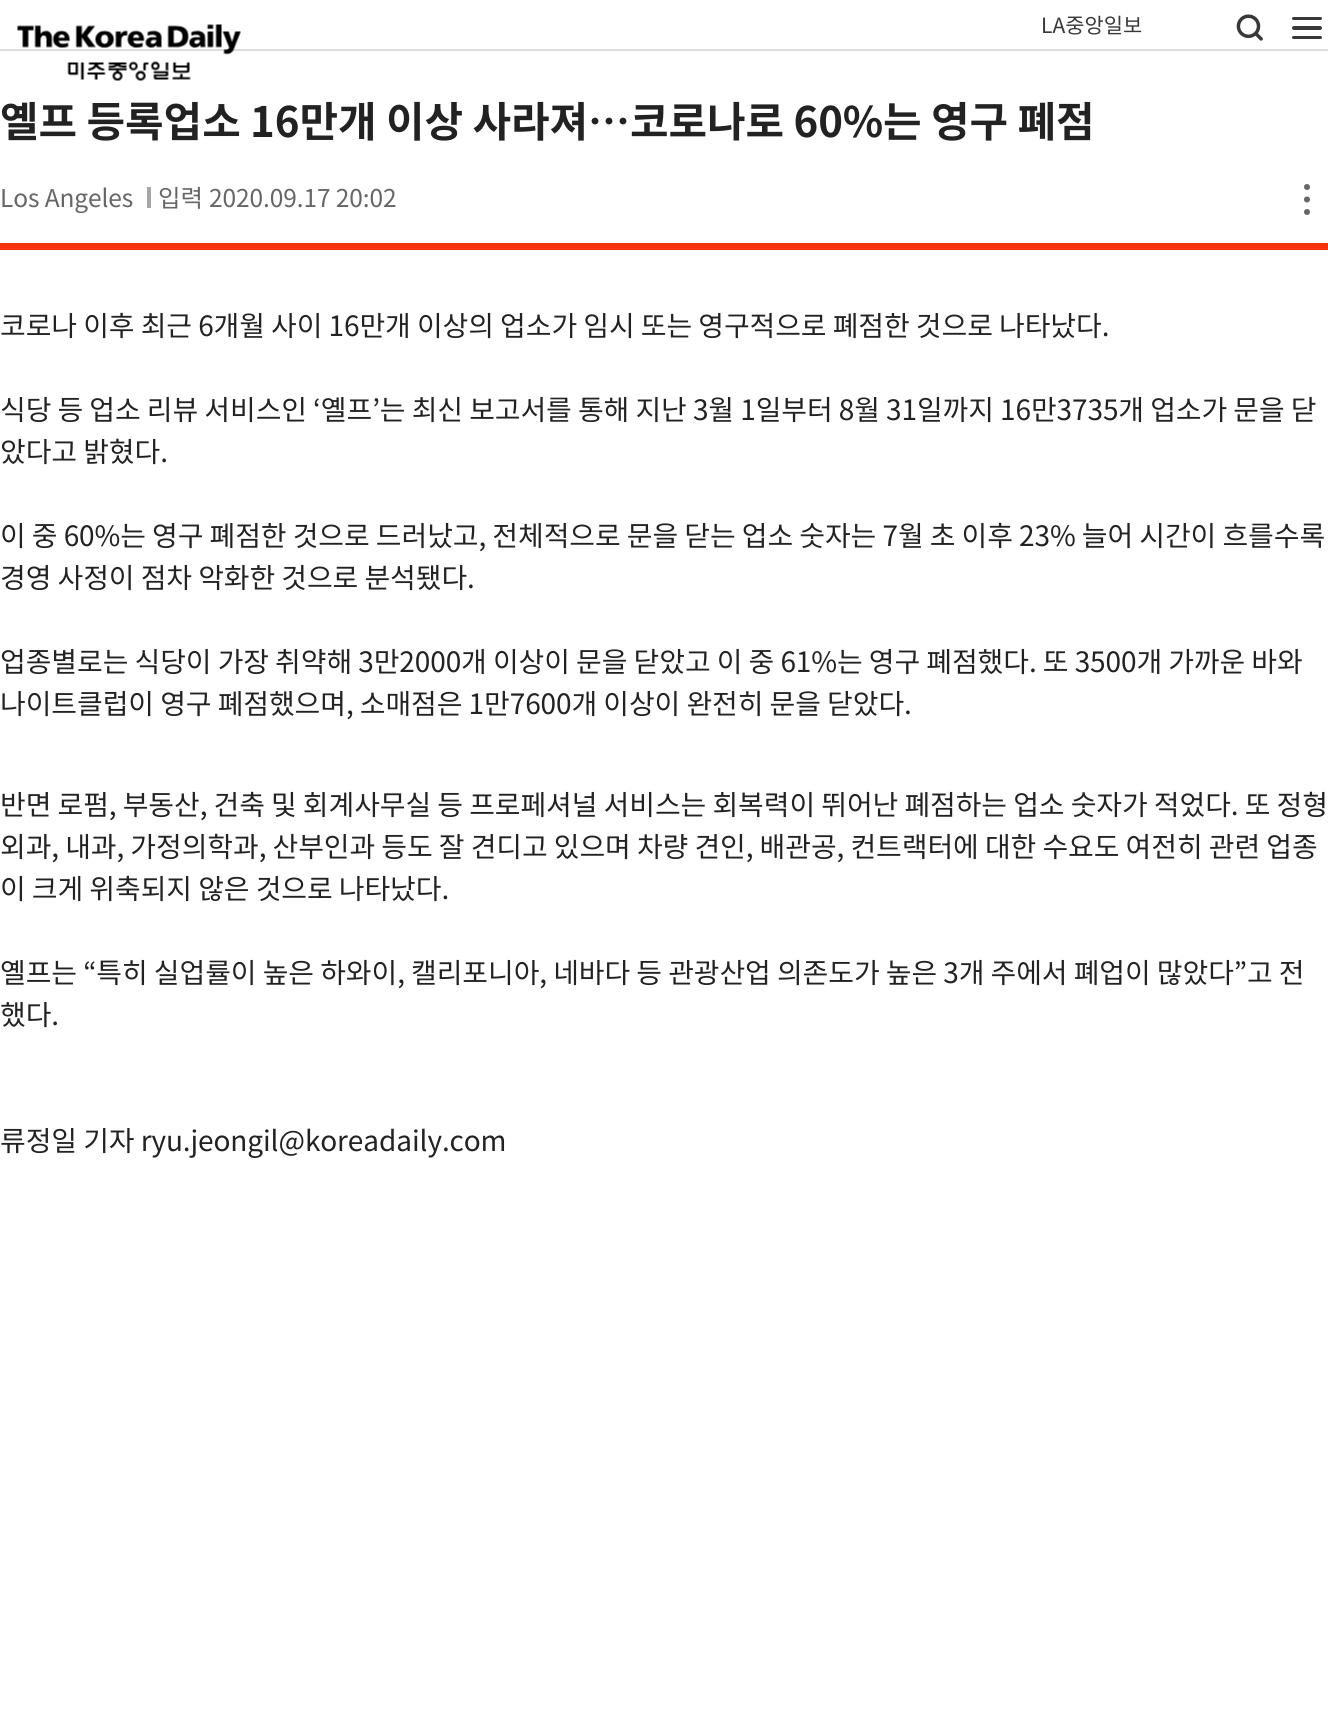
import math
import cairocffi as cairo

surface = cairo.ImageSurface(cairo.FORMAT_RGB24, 1328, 1725)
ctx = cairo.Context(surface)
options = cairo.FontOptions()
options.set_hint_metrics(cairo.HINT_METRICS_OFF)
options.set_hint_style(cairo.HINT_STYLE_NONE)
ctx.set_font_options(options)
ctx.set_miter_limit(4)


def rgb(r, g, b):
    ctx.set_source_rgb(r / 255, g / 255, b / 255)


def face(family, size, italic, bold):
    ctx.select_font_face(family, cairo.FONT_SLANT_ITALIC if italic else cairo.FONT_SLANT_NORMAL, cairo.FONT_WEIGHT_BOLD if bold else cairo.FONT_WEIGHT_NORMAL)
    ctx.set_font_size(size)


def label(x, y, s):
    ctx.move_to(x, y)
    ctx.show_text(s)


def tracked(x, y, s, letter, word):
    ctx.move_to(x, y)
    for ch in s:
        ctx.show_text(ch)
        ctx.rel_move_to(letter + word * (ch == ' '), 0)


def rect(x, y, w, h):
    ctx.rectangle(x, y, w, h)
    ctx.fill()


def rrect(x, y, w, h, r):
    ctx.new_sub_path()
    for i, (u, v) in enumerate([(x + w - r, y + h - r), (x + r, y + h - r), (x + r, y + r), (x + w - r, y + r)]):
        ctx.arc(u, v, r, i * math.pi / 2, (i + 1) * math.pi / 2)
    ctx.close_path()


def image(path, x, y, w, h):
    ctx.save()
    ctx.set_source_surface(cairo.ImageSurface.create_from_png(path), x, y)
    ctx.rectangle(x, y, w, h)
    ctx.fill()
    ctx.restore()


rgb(255, 255, 255)
ctx.paint()
rgb(222, 222, 222)
rect(0, 49, 1328, 2)
image('image0.png', 17, 24, 224, 57)
face('Noto Sans KR', 21, 0, 0)
rgb(56, 56, 56)
label(1041, 33, 'LA중앙일보')
image('image1.png', 1236, 14, 27, 27)
rrect(1292, 17, 30, 3, 1.5)
ctx.fill()
rrect(1292, 26, 30, 4, 2)
ctx.fill()
rrect(1292, 36, 30, 3, 1.5)
ctx.fill()
rgb(246, 51, 10)
rect(0, 243, 1328, 7)
face('Noto Sans KR', 42, 0, 1)
rgb(34, 34, 34)
tracked(0, 137, '옐프 등록업소 16만개 이상 사라져…코로나로 60%는 영구 폐점', -0.1, 0)
face('Noto Sans KR', 24.5, 0, 0)
rgb(102, 102, 102)
tracked(0, 207, 'Los Angeles', -0.1, 0)
rgb(167, 167, 167)
rect(147, 187, 4, 21)
rgb(102, 102, 102)
tracked(158, 207, '입력', -0.1, 0)
tracked(209, 207, '2020.09.17 20:02', -0.1, 0)
ctx.new_path()
ctx.arc(1307, 187, 3, 0, 2 * math.pi)
ctx.fill()
ctx.arc(1307, 199.5, 3, 0, 2 * math.pi)
ctx.fill()
ctx.arc(1307, 212, 3, 0, 2 * math.pi)
ctx.fill()
face('Noto Sans KR', 28, 0, 0)
rgb(34, 34, 34)
tracked(0, 336, '코로나 이후 최근 6개월 사이 16만개 이상의 업소가 임시 또는 영구적으로 폐점한 것으로 나타났다.', -0.1, 0)
tracked(0, 420, '식당 등 업소 리뷰 서비스인 ‘옐프’는 최신 보고서를 통해 지난 3월 1일부터 8월 31일까지 16만3735개 업소가 문을 닫', -0.1, 0)
tracked(0, 462, '았다고 밝혔다.', -0.1, 0)
tracked(0, 546, '이 중 60%는 영구 폐점한 것으로 드러났고, 전체적으로 문을 닫는 업소 숫자는 7월 초 이후 23% 늘어 시간이 흐를수록', -0.1, 0)
tracked(0, 588, '경영 사정이 점차 악화한 것으로 분석됐다.', -0.1, 0)
tracked(0, 672, '업종별로는 식당이 가장 취약해 3만2000개 이상이 문을 닫았고 이 중 61%는 영구 폐점했다. 또 3500개 가까운 바와', -0.1, 0)
tracked(0, 714, '나이트클럽이 영구 폐점했으며, 소매점은 1만7600개 이상이 완전히 문을 닫았다.', -0.1, 0)
tracked(0, 815, '반면 로펌, 부동산, 건축 및 회계사무실 등 프로페셔널 서비스는 회복력이 뛰어난 폐점하는 업소 숫자가 적었다. 또 정형', -0.1, 0)
tracked(0, 857, '외과, 내과, 가정의학과, 산부인과 등도 잘 견디고 있으며 차량 견인, 배관공, 컨트랙터에 대한 수요도 여전히 관련 업종', -0.1, 0)
tracked(0, 899, '이 크게 위축되지 않은 것으로 나타났다.', -0.1, 0)
tracked(0, 983, '옐프는 “특히 실업률이 높은 하와이, 캘리포니아, 네바다 등 관광산업 의존도가 높은 3개 주에서 폐업이 많았다”고 전', -0.1, 0)
tracked(0, 1025, '했다.', -0.1, 0)
tracked(0, 1151, '류정일 기자 ryu.jeongil@koreadaily.com', -0.1, 0)
surface.write_to_png('render.png')
